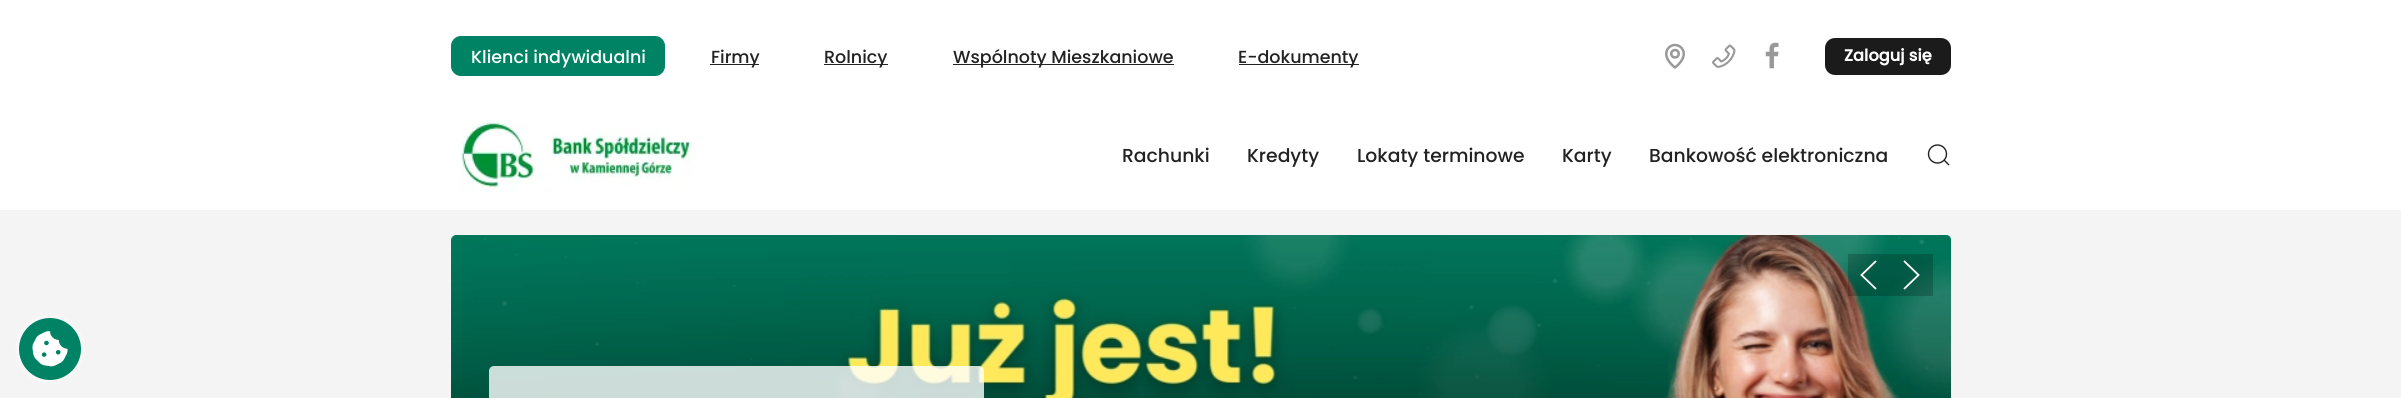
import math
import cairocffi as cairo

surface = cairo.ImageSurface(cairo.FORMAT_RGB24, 2401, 398)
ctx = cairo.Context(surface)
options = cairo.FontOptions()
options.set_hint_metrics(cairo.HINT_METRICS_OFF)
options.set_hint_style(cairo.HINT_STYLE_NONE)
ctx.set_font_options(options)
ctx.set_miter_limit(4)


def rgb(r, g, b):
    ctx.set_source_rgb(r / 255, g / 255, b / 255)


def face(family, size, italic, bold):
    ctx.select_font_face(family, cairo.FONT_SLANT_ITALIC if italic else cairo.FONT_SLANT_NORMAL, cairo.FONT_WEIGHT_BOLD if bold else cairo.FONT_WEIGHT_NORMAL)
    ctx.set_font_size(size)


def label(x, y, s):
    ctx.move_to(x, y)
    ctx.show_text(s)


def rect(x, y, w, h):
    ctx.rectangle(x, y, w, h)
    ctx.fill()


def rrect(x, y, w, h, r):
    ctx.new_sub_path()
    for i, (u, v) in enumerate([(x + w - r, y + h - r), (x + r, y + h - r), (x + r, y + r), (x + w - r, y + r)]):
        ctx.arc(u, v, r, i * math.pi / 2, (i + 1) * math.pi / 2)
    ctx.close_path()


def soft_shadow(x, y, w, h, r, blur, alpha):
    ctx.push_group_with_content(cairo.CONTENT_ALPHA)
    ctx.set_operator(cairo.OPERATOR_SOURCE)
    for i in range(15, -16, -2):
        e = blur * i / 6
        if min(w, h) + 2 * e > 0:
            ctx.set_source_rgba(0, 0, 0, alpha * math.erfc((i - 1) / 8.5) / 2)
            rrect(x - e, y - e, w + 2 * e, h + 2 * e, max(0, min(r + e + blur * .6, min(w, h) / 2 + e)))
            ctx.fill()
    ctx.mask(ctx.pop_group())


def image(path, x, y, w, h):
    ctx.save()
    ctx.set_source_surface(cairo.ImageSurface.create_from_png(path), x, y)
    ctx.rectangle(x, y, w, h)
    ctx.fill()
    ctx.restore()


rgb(255, 255, 255)
ctx.paint()
rgb(0, 131, 100)
rrect(451.5, 36.5, 213, 39, 9.5)
ctx.fill_preserve()
ctx.set_line_width(1)
ctx.stroke()
face('Poppins Medium', 17.5, 0, 0)
rgb(255, 255, 255)
label(471, 63, 'Klienci indywidualni')
rgb(34, 34, 34)
rect(710, 64, 49, 1)
label(711, 63, 'Firmy')
rect(824, 64, 64, 1)
label(824, 63, 'Rolnicy')
rect(953, 64, 221, 1)
label(953, 63, 'Wspólnoty Mieszkaniowe')
rect(1239, 64, 120, 1)
label(1238, 63, 'E-dokumenty')
image('image0.png', 1665, 43, 20, 26)
image('image1.png', 1712, 44, 24, 24)
image('image2.png', 1765, 42, 14, 27)
rgb(27, 27, 27)
rrect(1825, 38, 126, 37, 10)
ctx.fill()
face('Poppins', 16.25, 0, 1)
rgb(255, 255, 255)
label(1844, 61, 'Zaloguj się')
image('image3.png', 460, 121, 232, 72)
face('Poppins Medium', 18.75, 0, 0)
rgb(34, 34, 34)
label(1122, 162, 'Rachunki')
label(1247, 162, 'Kredyty')
label(1357, 162, 'Lokaty terminowe')
label(1562, 162, 'Karty')
label(1649, 162, 'Bankowość elektroniczna')
ctx.new_path()
ctx.arc(1937.5, 154, 9, 0, 2 * math.pi)
ctx.set_line_width(1.4)
ctx.stroke()
ctx.new_path()
ctx.move_to(1944, 160)
ctx.line_to(1949, 165)
ctx.close_path()
ctx.stroke()
rgb(244, 244, 244)
rect(0, 210, 2401, 188)
image('image4.png', 451, 235, 1500, 163)
ctx.set_source_rgba(1, 1, 1, 0.8)
rrect(489, 366, 495, 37, 5)
ctx.fill()
ctx.set_source_rgba(0, 0, 0, 0.2)
rect(1848, 254, 42, 42)
rect(1890, 254, 43, 42)
ctx.new_path()
ctx.move_to(1876, 261)
ctx.line_to(1861.5, 275)
ctx.line_to(1876, 289)
ctx.move_to(1904, 289)
ctx.line_to(1918.5, 275)
ctx.line_to(1904, 261)
rgb(255, 255, 255)
ctx.set_line_width(1.8)
ctx.stroke()
rgb(255, 255, 255)
soft_shadow(19, 318, 62, 62, 31, 3, 1)
rgb(0, 131, 100)
ctx.arc(50, 349, 31, 0, 2 * math.pi)
ctx.fill()
image('image5.png', 32, 331, 36, 36)
surface.write_to_png('render.png')
